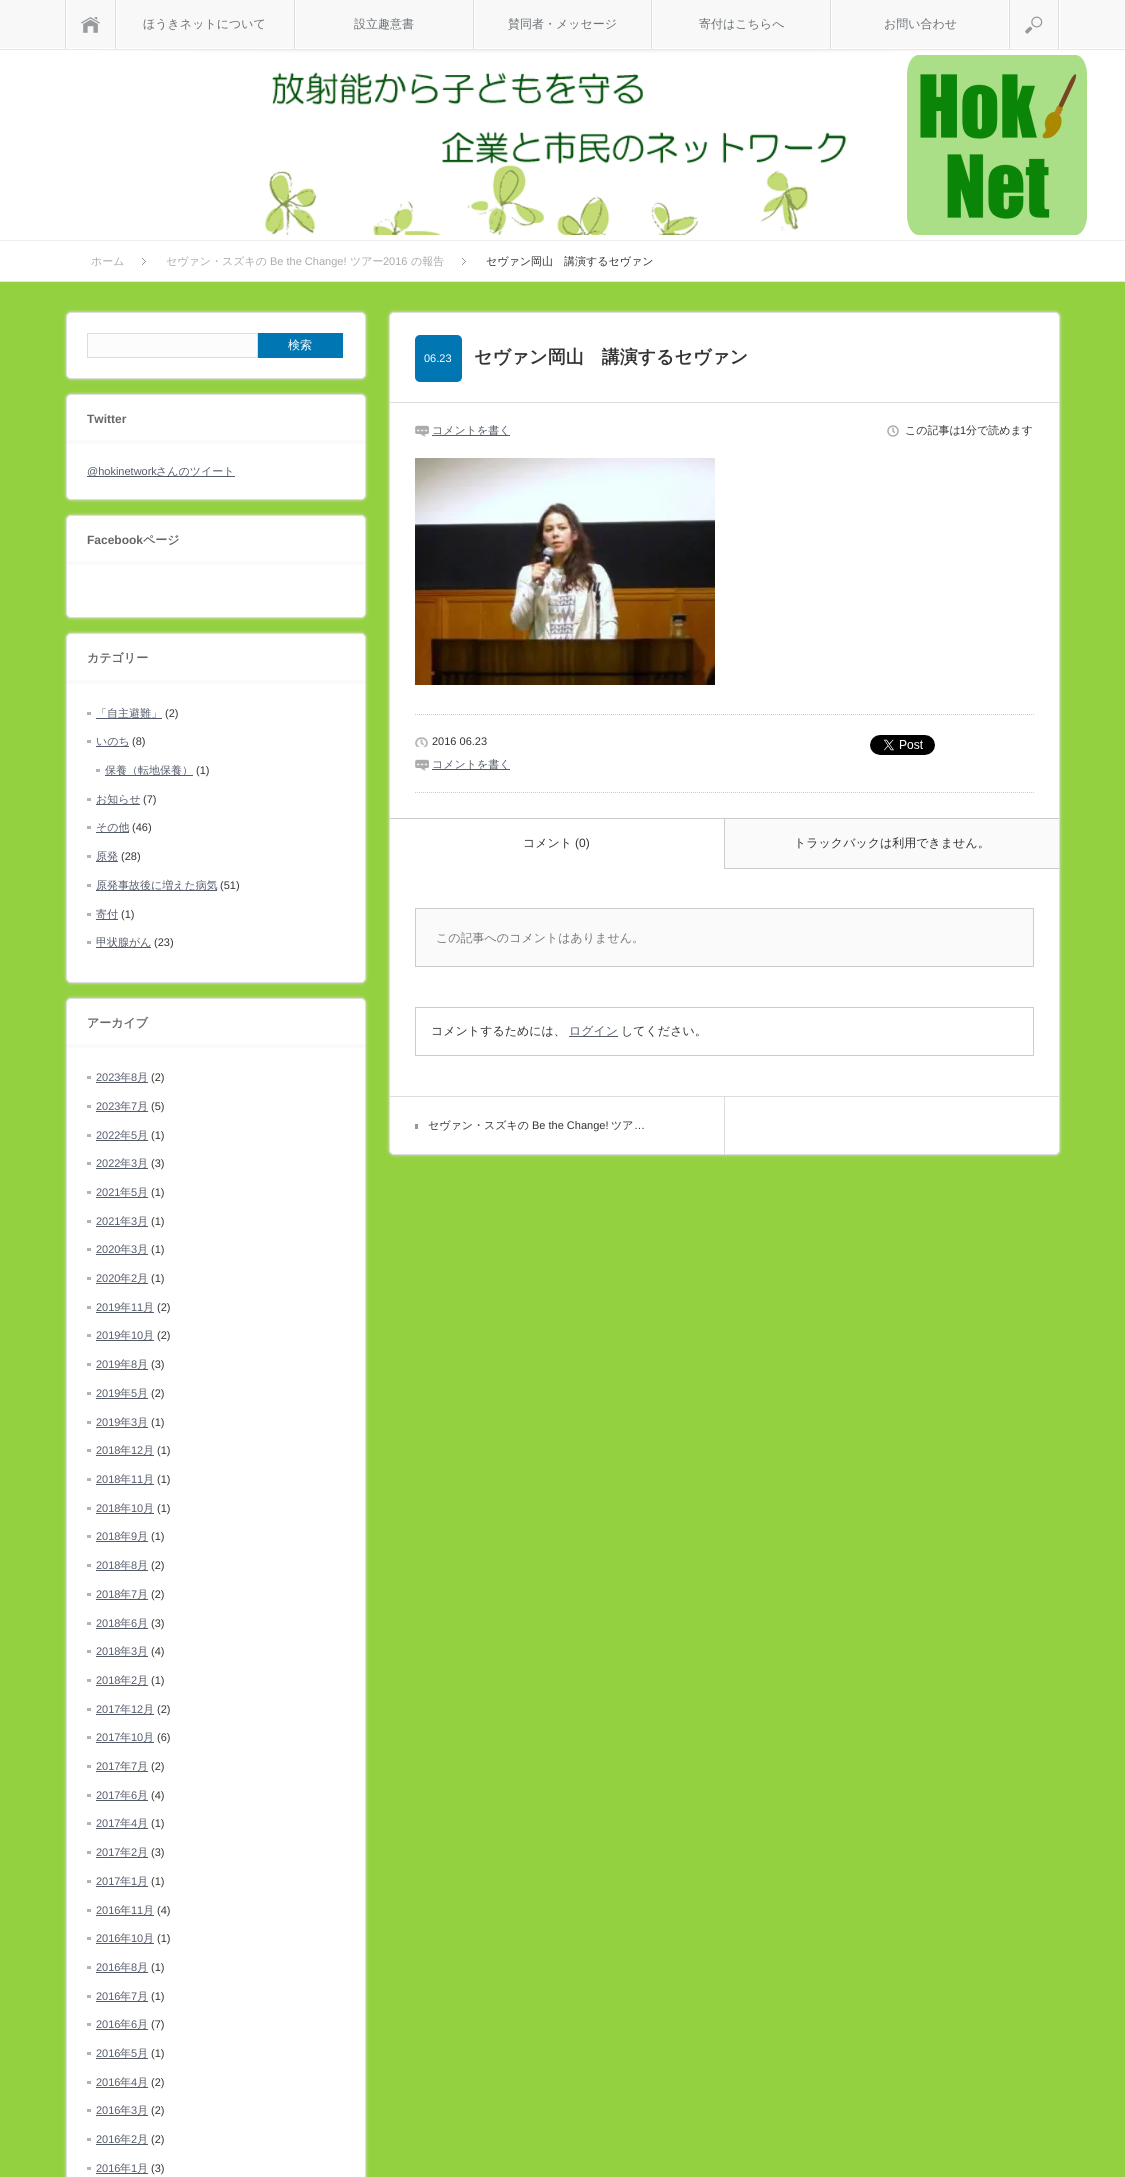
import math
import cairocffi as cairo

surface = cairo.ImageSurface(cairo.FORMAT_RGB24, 1125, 2177)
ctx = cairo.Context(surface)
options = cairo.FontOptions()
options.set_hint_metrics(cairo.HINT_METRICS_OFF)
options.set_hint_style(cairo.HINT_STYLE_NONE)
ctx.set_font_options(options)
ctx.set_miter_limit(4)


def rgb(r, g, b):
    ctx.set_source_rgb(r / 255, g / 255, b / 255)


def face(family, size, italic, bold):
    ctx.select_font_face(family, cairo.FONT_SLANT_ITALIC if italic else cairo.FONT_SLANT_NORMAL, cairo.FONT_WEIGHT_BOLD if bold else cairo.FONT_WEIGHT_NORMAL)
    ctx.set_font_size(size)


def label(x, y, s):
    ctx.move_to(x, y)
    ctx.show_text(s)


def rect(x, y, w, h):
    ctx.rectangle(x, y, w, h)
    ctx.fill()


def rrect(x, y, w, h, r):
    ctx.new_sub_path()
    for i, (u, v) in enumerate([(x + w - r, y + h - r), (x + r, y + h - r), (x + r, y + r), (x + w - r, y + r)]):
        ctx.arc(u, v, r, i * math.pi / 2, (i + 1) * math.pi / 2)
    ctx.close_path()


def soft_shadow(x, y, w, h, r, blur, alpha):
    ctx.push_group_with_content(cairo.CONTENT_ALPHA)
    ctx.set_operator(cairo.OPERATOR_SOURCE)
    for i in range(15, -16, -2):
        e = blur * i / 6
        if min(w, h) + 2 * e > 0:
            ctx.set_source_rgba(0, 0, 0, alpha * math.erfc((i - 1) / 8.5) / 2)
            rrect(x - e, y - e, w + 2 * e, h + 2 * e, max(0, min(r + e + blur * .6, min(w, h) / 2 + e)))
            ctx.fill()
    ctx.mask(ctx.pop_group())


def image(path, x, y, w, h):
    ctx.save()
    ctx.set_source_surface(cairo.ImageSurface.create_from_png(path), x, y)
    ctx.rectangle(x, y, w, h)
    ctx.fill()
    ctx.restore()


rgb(148, 209, 64)
ctx.paint()
image('image0.png', 0, 0, 1125, 50)
rgb(255, 255, 255)
rect(1059, 0, 1, 50)
image('image1.png', 81, 17, 19, 16)
ctx.save()
ctx.rectangle(66, 0, 50, 49)
ctx.clip()
ctx.set_fill_rule(cairo.FILL_RULE_EVEN_ODD)
ctx.new_path()
ctx.move_to(-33, -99)
ctx.line_to(215, -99)
ctx.line_to(215, 148)
ctx.line_to(-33, 148)
ctx.close_path()
ctx.move_to(67, -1)
ctx.line_to(117, -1)
ctx.line_to(117, 48)
ctx.line_to(67, 48)
ctx.close_path()
ctx.fill()
ctx.restore()
rgb(221, 221, 221)
rect(65, 0, 1, 49)
image('image2.png', 1025, 16, 18, 18)
ctx.save()
ctx.rectangle(1008, 0, 50, 49)
ctx.clip()
rgb(255, 255, 255)
ctx.set_fill_rule(cairo.FILL_RULE_EVEN_ODD)
ctx.new_path()
ctx.move_to(909, -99)
ctx.line_to(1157, -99)
ctx.line_to(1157, 148)
ctx.line_to(909, 148)
ctx.close_path()
ctx.move_to(1009, -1)
ctx.line_to(1059, -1)
ctx.line_to(1059, 48)
ctx.line_to(1009, 48)
ctx.close_path()
ctx.fill()
ctx.restore()
rect(1009, 0, 1, 49)
ctx.save()
ctx.rectangle(116, 0, 178, 49)
ctx.clip()
rgb(255, 255, 255)
ctx.set_fill_rule(cairo.FILL_RULE_EVEN_ODD)
ctx.new_path()
ctx.move_to(17, -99)
ctx.line_to(393, -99)
ctx.line_to(393, 148)
ctx.line_to(17, 148)
ctx.close_path()
ctx.move_to(117, -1)
ctx.line_to(295, -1)
ctx.line_to(295, 48)
ctx.line_to(117, 48)
ctx.close_path()
ctx.fill()
ctx.restore()
rect(115, 0, 1, 49)
face('WenQuanYi Zen Hei Medium', 12, 0, 0)
rgb(107, 113, 117)
label(143, 28, 'ほうきネットについて')
ctx.save()
ctx.rectangle(295, 0, 178, 49)
ctx.clip()
rgb(255, 255, 255)
ctx.set_fill_rule(cairo.FILL_RULE_EVEN_ODD)
ctx.new_path()
ctx.move_to(196, -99)
ctx.line_to(572, -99)
ctx.line_to(572, 148)
ctx.line_to(196, 148)
ctx.close_path()
ctx.move_to(296, -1)
ctx.line_to(474, -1)
ctx.line_to(474, 48)
ctx.line_to(296, 48)
ctx.close_path()
ctx.fill()
ctx.restore()
rgb(221, 221, 221)
rect(294, 0, 1, 49)
rgb(107, 113, 117)
label(354, 28, '設立趣意書')
ctx.save()
ctx.rectangle(474, 0, 177, 49)
ctx.clip()
rgb(255, 255, 255)
ctx.set_fill_rule(cairo.FILL_RULE_EVEN_ODD)
ctx.new_path()
ctx.move_to(375, -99)
ctx.line_to(750, -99)
ctx.line_to(750, 148)
ctx.line_to(375, 148)
ctx.close_path()
ctx.move_to(475, -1)
ctx.line_to(652, -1)
ctx.line_to(652, 48)
ctx.line_to(475, 48)
ctx.close_path()
ctx.fill()
ctx.restore()
rgb(221, 221, 221)
rect(473, 0, 1, 49)
rgb(107, 113, 117)
label(508, 28, '賛同者・メッセージ')
ctx.save()
ctx.rectangle(652, 0, 178, 49)
ctx.clip()
rgb(255, 255, 255)
ctx.set_fill_rule(cairo.FILL_RULE_EVEN_ODD)
ctx.new_path()
ctx.move_to(553, -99)
ctx.line_to(929, -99)
ctx.line_to(929, 148)
ctx.line_to(553, 148)
ctx.close_path()
ctx.move_to(653, -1)
ctx.line_to(831, -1)
ctx.line_to(831, 48)
ctx.line_to(653, 48)
ctx.close_path()
ctx.fill()
ctx.restore()
rgb(221, 221, 221)
rect(651, 0, 1, 49)
rgb(107, 113, 117)
label(699, 28, '寄付はこちらへ')
ctx.save()
ctx.rectangle(831, 0, 178, 49)
ctx.clip()
rgb(255, 255, 255)
ctx.set_fill_rule(cairo.FILL_RULE_EVEN_ODD)
ctx.new_path()
ctx.move_to(732, -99)
ctx.line_to(1108, -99)
ctx.line_to(1108, 148)
ctx.line_to(732, 148)
ctx.close_path()
ctx.move_to(832, -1)
ctx.line_to(1010, -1)
ctx.line_to(1010, 48)
ctx.line_to(832, 48)
ctx.close_path()
ctx.fill()
ctx.restore()
rgb(221, 221, 221)
rect(830, 0, 1, 49)
rgb(107, 113, 117)
label(884, 28, 'お問い合わせ')
rgb(221, 221, 221)
rect(1058, 0, 1, 49)
image('image4.png', 0, 50, 1125, 232)
image('image3.png', 100, 50, 889, 3)
image('image5.png', 265, 55, 822, 180)
face('WenQuanYi Zen Hei Medium', 11, 0, 0)
rgb(170, 170, 170)
label(91, 265, 'ホーム')
image('image6.png', 142, 258, 4, 7)
label(166, 265, 'セヴァン・スズキの')
face('Liberation Sans', 11, 0, 0)
label(270, 265, 'Be the Change!')
face('WenQuanYi Zen Hei Medium', 11, 0, 0)
label(350, 265, 'ツアー')
face('Liberation Sans', 11, 0, 0)
label(383, 265, '2016')
face('WenQuanYi Zen Hei Medium', 11, 0, 0)
label(411, 265, 'の報告')
image('image6.png', 462, 258, 4, 7)
rgb(51, 51, 51)
label(486, 265, 'セヴァン岡山　講演するセヴァン')
rgb(221, 221, 221)
soft_shadow(66, 312, 300, 67, 5, 1.5, 1)
rgb(255, 255, 255)
rrect(66.5, 312.5, 299, 66, 4.5)
ctx.fill_preserve()
rgb(221, 221, 221)
ctx.set_line_width(1)
ctx.stroke()
rgb(252, 252, 252)
ctx.rectangle(87.5, 333.5, 170, 24)
ctx.fill_preserve()
rgb(221, 221, 221)
ctx.stroke()
rgb(0, 119, 179)
rect(258, 333, 85, 25)
face('WenQuanYi Zen Hei Medium', 12, 0, 0)
rgb(255, 255, 255)
label(288, 349, '検索')
rgb(221, 221, 221)
soft_shadow(66, 394, 300, 106, 5, 1.5, 1)
rgb(255, 255, 255)
rrect(66.5, 394.5, 299, 105, 4.5)
ctx.fill_preserve()
rgb(221, 221, 221)
ctx.stroke()
rgb(250, 250, 250)
rect(67, 440, 298, 4)
face('Liberation Sans', 12, 0, 1)
rgb(102, 102, 102)
label(87, 423, 'Twitter')
rgb(84, 91, 107)
rect(87, 476, 148, 1)
face('Liberation Sans', 11, 0, 0)
label(87, 475, '@hokinetwork')
face('WenQuanYi Zen Hei Medium', 11, 0, 0)
label(156, 475, 'さんのツイート')
rgb(221, 221, 221)
soft_shadow(66, 515, 300, 103, 5, 1.5, 1)
rgb(255, 255, 255)
rrect(66.5, 515.5, 299, 102, 4.5)
ctx.fill_preserve()
rgb(221, 221, 221)
ctx.stroke()
rgb(250, 250, 250)
rect(67, 561, 298, 4)
face('Liberation Sans', 12, 0, 1)
rgb(102, 102, 102)
label(87, 544, 'Facebook')
face('WenQuanYi Zen Hei', 12, 0, 1)
label(143, 544, 'ページ')
rgb(221, 221, 221)
soft_shadow(66, 633, 300, 350, 5, 1.5, 1)
rgb(255, 255, 255)
rrect(66.5, 633.5, 299, 349, 4.5)
ctx.fill_preserve()
rgb(221, 221, 221)
ctx.stroke()
rgb(250, 250, 250)
rect(67, 680, 298, 4)
rgb(102, 102, 102)
label(87, 662, 'カテゴリー')
rgb(180, 180, 180)
rect(87, 712, 4, 3)
rgb(84, 91, 107)
rect(96, 718, 66, 1)
face('WenQuanYi Zen Hei Medium', 11, 0, 0)
label(96, 717, '「自主避難」')
face('Liberation Sans', 11, 0, 0)
rgb(51, 51, 51)
label(165, 717, '(2)')
rgb(180, 180, 180)
rect(87, 740, 4, 3)
rgb(84, 91, 107)
rect(96, 746, 33, 1)
face('WenQuanYi Zen Hei Medium', 11, 0, 0)
label(96, 745, 'いのち')
face('Liberation Sans', 11, 0, 0)
rgb(51, 51, 51)
label(132, 745, '(8)')
rgb(180, 180, 180)
rect(96, 769, 4, 3)
rgb(84, 91, 107)
rect(105, 775, 88, 1)
face('WenQuanYi Zen Hei Medium', 11, 0, 0)
label(105, 774, '保養（転地保養）')
face('Liberation Sans', 11, 0, 0)
rgb(51, 51, 51)
label(196, 774, '(1)')
rgb(180, 180, 180)
rect(87, 798, 4, 3)
rgb(84, 91, 107)
rect(96, 804, 44, 1)
face('WenQuanYi Zen Hei Medium', 11, 0, 0)
label(96, 803, 'お知らせ')
face('Liberation Sans', 11, 0, 0)
rgb(51, 51, 51)
label(143, 803, '(7)')
rgb(180, 180, 180)
rect(87, 826, 4, 3)
rgb(84, 91, 107)
rect(96, 832, 33, 1)
face('WenQuanYi Zen Hei Medium', 11, 0, 0)
label(96, 831, 'その他')
face('Liberation Sans', 11, 0, 0)
rgb(51, 51, 51)
label(132, 831, '(46)')
rgb(180, 180, 180)
rect(87, 855, 4, 3)
rgb(84, 91, 107)
rect(96, 861, 22, 1)
face('WenQuanYi Zen Hei Medium', 11, 0, 0)
label(96, 860, '原発')
face('Liberation Sans', 11, 0, 0)
rgb(51, 51, 51)
label(121, 860, '(28)')
rgb(180, 180, 180)
rect(87, 884, 4, 3)
rgb(84, 91, 107)
rect(96, 890, 121, 1)
face('WenQuanYi Zen Hei Medium', 11, 0, 0)
label(96, 889, '原発事故後に増えた病気')
face('Liberation Sans', 11, 0, 0)
rgb(51, 51, 51)
label(220, 889, '(51)')
rgb(180, 180, 180)
rect(87, 913, 4, 3)
rgb(84, 91, 107)
rect(96, 919, 22, 1)
face('WenQuanYi Zen Hei Medium', 11, 0, 0)
label(96, 918, '寄付')
face('Liberation Sans', 11, 0, 0)
rgb(51, 51, 51)
label(121, 918, '(1)')
rgb(180, 180, 180)
rect(87, 941, 4, 3)
rgb(84, 91, 107)
rect(96, 947, 55, 1)
face('WenQuanYi Zen Hei Medium', 11, 0, 0)
label(96, 946, '甲状腺がん')
face('Liberation Sans', 11, 0, 0)
rgb(51, 51, 51)
label(154, 946, '(23)')
rgb(221, 221, 221)
soft_shadow(66, 998, 300, 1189, 5, 1.5, 1)
rgb(255, 255, 255)
rrect(66.5, 998.5, 299, 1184, 4.5)
ctx.fill_preserve()
rgb(221, 221, 221)
ctx.stroke()
rgb(250, 250, 250)
rect(67, 1044, 298, 4)
face('WenQuanYi Zen Hei', 12, 0, 1)
rgb(102, 102, 102)
label(87, 1027, 'アーカイブ')
rgb(180, 180, 180)
rect(87, 1076, 4, 3)
face('Liberation Sans', 11, 0, 0)
rgb(84, 91, 107)
label(96, 1081, '2023')
rect(96, 1082, 52, 1)
face('WenQuanYi Zen Hei Medium', 11, 0, 0)
label(120, 1081, '年')
face('Liberation Sans', 11, 0, 0)
label(131, 1081, '8')
face('WenQuanYi Zen Hei Medium', 11, 0, 0)
label(137, 1081, '月')
face('Liberation Sans', 11, 0, 0)
rgb(51, 51, 51)
label(151, 1081, '(2)')
rgb(180, 180, 180)
rect(87, 1105, 4, 3)
rgb(84, 91, 107)
label(96, 1110, '2023')
rect(96, 1111, 52, 1)
face('WenQuanYi Zen Hei Medium', 11, 0, 0)
label(120, 1110, '年')
face('Liberation Sans', 11, 0, 0)
label(131, 1110, '7')
face('WenQuanYi Zen Hei Medium', 11, 0, 0)
label(137, 1110, '月')
face('Liberation Sans', 11, 0, 0)
rgb(51, 51, 51)
label(151, 1110, '(5)')
rgb(180, 180, 180)
rect(87, 1134, 4, 3)
rgb(84, 91, 107)
label(96, 1139, '2022')
rect(96, 1140, 52, 1)
face('WenQuanYi Zen Hei Medium', 11, 0, 0)
label(120, 1139, '年')
face('Liberation Sans', 11, 0, 0)
label(131, 1139, '5')
face('WenQuanYi Zen Hei Medium', 11, 0, 0)
label(137, 1139, '月')
face('Liberation Sans', 11, 0, 0)
rgb(51, 51, 51)
label(151, 1139, '(1)')
rgb(180, 180, 180)
rect(87, 1162, 4, 3)
rgb(84, 91, 107)
label(96, 1167, '2022')
rect(96, 1168, 52, 1)
face('WenQuanYi Zen Hei Medium', 11, 0, 0)
label(120, 1167, '年')
face('Liberation Sans', 11, 0, 0)
label(131, 1167, '3')
face('WenQuanYi Zen Hei Medium', 11, 0, 0)
label(137, 1167, '月')
face('Liberation Sans', 11, 0, 0)
rgb(51, 51, 51)
label(151, 1167, '(3)')
rgb(180, 180, 180)
rect(87, 1191, 4, 3)
rgb(84, 91, 107)
label(96, 1196, '2021')
rect(96, 1197, 52, 1)
face('WenQuanYi Zen Hei Medium', 11, 0, 0)
label(120, 1196, '年')
face('Liberation Sans', 11, 0, 0)
label(131, 1196, '5')
face('WenQuanYi Zen Hei Medium', 11, 0, 0)
label(137, 1196, '月')
face('Liberation Sans', 11, 0, 0)
rgb(51, 51, 51)
label(151, 1196, '(1)')
rgb(180, 180, 180)
rect(87, 1220, 4, 3)
rgb(84, 91, 107)
label(96, 1225, '2021')
rect(96, 1226, 52, 1)
face('WenQuanYi Zen Hei Medium', 11, 0, 0)
label(120, 1225, '年')
face('Liberation Sans', 11, 0, 0)
label(131, 1225, '3')
face('WenQuanYi Zen Hei Medium', 11, 0, 0)
label(137, 1225, '月')
face('Liberation Sans', 11, 0, 0)
rgb(51, 51, 51)
label(151, 1225, '(1)')
rgb(180, 180, 180)
rect(87, 1248, 4, 3)
rgb(84, 91, 107)
label(96, 1253, '2020')
rect(96, 1254, 52, 1)
face('WenQuanYi Zen Hei Medium', 11, 0, 0)
label(120, 1253, '年')
face('Liberation Sans', 11, 0, 0)
label(131, 1253, '3')
face('WenQuanYi Zen Hei Medium', 11, 0, 0)
label(137, 1253, '月')
face('Liberation Sans', 11, 0, 0)
rgb(51, 51, 51)
label(151, 1253, '(1)')
rgb(180, 180, 180)
rect(87, 1277, 4, 3)
rgb(84, 91, 107)
label(96, 1282, '2020')
rect(96, 1283, 52, 1)
face('WenQuanYi Zen Hei Medium', 11, 0, 0)
label(120, 1282, '年')
face('Liberation Sans', 11, 0, 0)
label(131, 1282, '2')
face('WenQuanYi Zen Hei Medium', 11, 0, 0)
label(137, 1282, '月')
face('Liberation Sans', 11, 0, 0)
rgb(51, 51, 51)
label(151, 1282, '(1)')
rgb(180, 180, 180)
rect(87, 1306, 4, 3)
rgb(84, 91, 107)
label(96, 1311, '2019')
rect(96, 1312, 58, 1)
face('WenQuanYi Zen Hei Medium', 11, 0, 0)
label(120, 1311, '年')
face('Liberation Sans', 11, 0, 0)
label(131, 1311, '11')
face('WenQuanYi Zen Hei Medium', 11, 0, 0)
label(143, 1311, '月')
face('Liberation Sans', 11, 0, 0)
rgb(51, 51, 51)
label(157, 1311, '(2)')
rgb(180, 180, 180)
rect(87, 1334, 4, 3)
rgb(84, 91, 107)
label(96, 1339, '2019')
rect(96, 1340, 58, 1)
face('WenQuanYi Zen Hei Medium', 11, 0, 0)
label(120, 1339, '年')
face('Liberation Sans', 11, 0, 0)
label(131, 1339, '10')
face('WenQuanYi Zen Hei Medium', 11, 0, 0)
label(143, 1339, '月')
face('Liberation Sans', 11, 0, 0)
rgb(51, 51, 51)
label(157, 1339, '(2)')
rgb(180, 180, 180)
rect(87, 1363, 4, 3)
rgb(84, 91, 107)
label(96, 1368, '2019')
rect(96, 1369, 52, 1)
face('WenQuanYi Zen Hei Medium', 11, 0, 0)
label(120, 1368, '年')
face('Liberation Sans', 11, 0, 0)
label(131, 1368, '8')
face('WenQuanYi Zen Hei Medium', 11, 0, 0)
label(137, 1368, '月')
face('Liberation Sans', 11, 0, 0)
rgb(51, 51, 51)
label(151, 1368, '(3)')
rgb(180, 180, 180)
rect(87, 1392, 4, 3)
rgb(84, 91, 107)
label(96, 1397, '2019')
rect(96, 1398, 52, 1)
face('WenQuanYi Zen Hei Medium', 11, 0, 0)
label(120, 1397, '年')
face('Liberation Sans', 11, 0, 0)
label(131, 1397, '5')
face('WenQuanYi Zen Hei Medium', 11, 0, 0)
label(137, 1397, '月')
face('Liberation Sans', 11, 0, 0)
rgb(51, 51, 51)
label(151, 1397, '(2)')
rgb(180, 180, 180)
rect(87, 1421, 4, 3)
rgb(84, 91, 107)
label(96, 1426, '2019')
rect(96, 1427, 52, 1)
face('WenQuanYi Zen Hei Medium', 11, 0, 0)
label(120, 1426, '年')
face('Liberation Sans', 11, 0, 0)
label(131, 1426, '3')
face('WenQuanYi Zen Hei Medium', 11, 0, 0)
label(137, 1426, '月')
face('Liberation Sans', 11, 0, 0)
rgb(51, 51, 51)
label(151, 1426, '(1)')
rgb(180, 180, 180)
rect(87, 1449, 4, 3)
rgb(84, 91, 107)
label(96, 1454, '2018')
rect(96, 1455, 58, 1)
face('WenQuanYi Zen Hei Medium', 11, 0, 0)
label(120, 1454, '年')
face('Liberation Sans', 11, 0, 0)
label(131, 1454, '12')
face('WenQuanYi Zen Hei Medium', 11, 0, 0)
label(143, 1454, '月')
face('Liberation Sans', 11, 0, 0)
rgb(51, 51, 51)
label(157, 1454, '(1)')
rgb(180, 180, 180)
rect(87, 1478, 4, 3)
rgb(84, 91, 107)
label(96, 1483, '2018')
rect(96, 1484, 58, 1)
face('WenQuanYi Zen Hei Medium', 11, 0, 0)
label(120, 1483, '年')
face('Liberation Sans', 11, 0, 0)
label(131, 1483, '11')
face('WenQuanYi Zen Hei Medium', 11, 0, 0)
label(143, 1483, '月')
face('Liberation Sans', 11, 0, 0)
rgb(51, 51, 51)
label(157, 1483, '(1)')
rgb(180, 180, 180)
rect(87, 1507, 4, 3)
rgb(84, 91, 107)
label(96, 1512, '2018')
rect(96, 1513, 58, 1)
face('WenQuanYi Zen Hei Medium', 11, 0, 0)
label(120, 1512, '年')
face('Liberation Sans', 11, 0, 0)
label(131, 1512, '10')
face('WenQuanYi Zen Hei Medium', 11, 0, 0)
label(143, 1512, '月')
face('Liberation Sans', 11, 0, 0)
rgb(51, 51, 51)
label(157, 1512, '(1)')
rgb(180, 180, 180)
rect(87, 1535, 4, 3)
rgb(84, 91, 107)
label(96, 1540, '2018')
rect(96, 1541, 52, 1)
face('WenQuanYi Zen Hei Medium', 11, 0, 0)
label(120, 1540, '年')
face('Liberation Sans', 11, 0, 0)
label(131, 1540, '9')
face('WenQuanYi Zen Hei Medium', 11, 0, 0)
label(137, 1540, '月')
face('Liberation Sans', 11, 0, 0)
rgb(51, 51, 51)
label(151, 1540, '(1)')
rgb(180, 180, 180)
rect(87, 1564, 4, 3)
rgb(84, 91, 107)
label(96, 1569, '2018')
rect(96, 1570, 52, 1)
face('WenQuanYi Zen Hei Medium', 11, 0, 0)
label(120, 1569, '年')
face('Liberation Sans', 11, 0, 0)
label(131, 1569, '8')
face('WenQuanYi Zen Hei Medium', 11, 0, 0)
label(137, 1569, '月')
face('Liberation Sans', 11, 0, 0)
rgb(51, 51, 51)
label(151, 1569, '(2)')
rgb(180, 180, 180)
rect(87, 1593, 4, 3)
rgb(84, 91, 107)
label(96, 1598, '2018')
rect(96, 1599, 52, 1)
face('WenQuanYi Zen Hei Medium', 11, 0, 0)
label(120, 1598, '年')
face('Liberation Sans', 11, 0, 0)
label(131, 1598, '7')
face('WenQuanYi Zen Hei Medium', 11, 0, 0)
label(137, 1598, '月')
face('Liberation Sans', 11, 0, 0)
rgb(51, 51, 51)
label(151, 1598, '(2)')
rgb(180, 180, 180)
rect(87, 1622, 4, 3)
rgb(84, 91, 107)
label(96, 1627, '2018')
rect(96, 1628, 52, 1)
face('WenQuanYi Zen Hei Medium', 11, 0, 0)
label(120, 1627, '年')
face('Liberation Sans', 11, 0, 0)
label(131, 1627, '6')
face('WenQuanYi Zen Hei Medium', 11, 0, 0)
label(137, 1627, '月')
face('Liberation Sans', 11, 0, 0)
rgb(51, 51, 51)
label(151, 1627, '(3)')
rgb(180, 180, 180)
rect(87, 1650, 4, 3)
rgb(84, 91, 107)
label(96, 1655, '2018')
rect(96, 1656, 52, 1)
face('WenQuanYi Zen Hei Medium', 11, 0, 0)
label(120, 1655, '年')
face('Liberation Sans', 11, 0, 0)
label(131, 1655, '3')
face('WenQuanYi Zen Hei Medium', 11, 0, 0)
label(137, 1655, '月')
face('Liberation Sans', 11, 0, 0)
rgb(51, 51, 51)
label(151, 1655, '(4)')
rgb(180, 180, 180)
rect(87, 1679, 4, 3)
rgb(84, 91, 107)
label(96, 1684, '2018')
rect(96, 1685, 52, 1)
face('WenQuanYi Zen Hei Medium', 11, 0, 0)
label(120, 1684, '年')
face('Liberation Sans', 11, 0, 0)
label(131, 1684, '2')
face('WenQuanYi Zen Hei Medium', 11, 0, 0)
label(137, 1684, '月')
face('Liberation Sans', 11, 0, 0)
rgb(51, 51, 51)
label(151, 1684, '(1)')
rgb(180, 180, 180)
rect(87, 1708, 4, 3)
rgb(84, 91, 107)
label(96, 1713, '2017')
rect(96, 1714, 58, 1)
face('WenQuanYi Zen Hei Medium', 11, 0, 0)
label(120, 1713, '年')
face('Liberation Sans', 11, 0, 0)
label(131, 1713, '12')
face('WenQuanYi Zen Hei Medium', 11, 0, 0)
label(143, 1713, '月')
face('Liberation Sans', 11, 0, 0)
rgb(51, 51, 51)
label(157, 1713, '(2)')
rgb(180, 180, 180)
rect(87, 1736, 4, 3)
rgb(84, 91, 107)
label(96, 1741, '2017')
rect(96, 1742, 58, 1)
face('WenQuanYi Zen Hei Medium', 11, 0, 0)
label(120, 1741, '年')
face('Liberation Sans', 11, 0, 0)
label(131, 1741, '10')
face('WenQuanYi Zen Hei Medium', 11, 0, 0)
label(143, 1741, '月')
face('Liberation Sans', 11, 0, 0)
rgb(51, 51, 51)
label(157, 1741, '(6)')
rgb(180, 180, 180)
rect(87, 1765, 4, 3)
rgb(84, 91, 107)
label(96, 1770, '2017')
rect(96, 1771, 52, 1)
face('WenQuanYi Zen Hei Medium', 11, 0, 0)
label(120, 1770, '年')
face('Liberation Sans', 11, 0, 0)
label(131, 1770, '7')
face('WenQuanYi Zen Hei Medium', 11, 0, 0)
label(137, 1770, '月')
face('Liberation Sans', 11, 0, 0)
rgb(51, 51, 51)
label(151, 1770, '(2)')
rgb(180, 180, 180)
rect(87, 1794, 4, 3)
rgb(84, 91, 107)
label(96, 1799, '2017')
rect(96, 1800, 52, 1)
face('WenQuanYi Zen Hei Medium', 11, 0, 0)
label(120, 1799, '年')
face('Liberation Sans', 11, 0, 0)
label(131, 1799, '6')
face('WenQuanYi Zen Hei Medium', 11, 0, 0)
label(137, 1799, '月')
face('Liberation Sans', 11, 0, 0)
rgb(51, 51, 51)
label(151, 1799, '(4)')
rgb(180, 180, 180)
rect(87, 1822, 4, 3)
rgb(84, 91, 107)
label(96, 1827, '2017')
rect(96, 1828, 52, 1)
face('WenQuanYi Zen Hei Medium', 11, 0, 0)
label(120, 1827, '年')
face('Liberation Sans', 11, 0, 0)
label(131, 1827, '4')
face('WenQuanYi Zen Hei Medium', 11, 0, 0)
label(137, 1827, '月')
face('Liberation Sans', 11, 0, 0)
rgb(51, 51, 51)
label(151, 1827, '(1)')
rgb(180, 180, 180)
rect(87, 1851, 4, 3)
rgb(84, 91, 107)
label(96, 1856, '2017')
rect(96, 1857, 52, 1)
face('WenQuanYi Zen Hei Medium', 11, 0, 0)
label(120, 1856, '年')
face('Liberation Sans', 11, 0, 0)
label(131, 1856, '2')
face('WenQuanYi Zen Hei Medium', 11, 0, 0)
label(137, 1856, '月')
face('Liberation Sans', 11, 0, 0)
rgb(51, 51, 51)
label(151, 1856, '(3)')
rgb(180, 180, 180)
rect(87, 1880, 4, 3)
rgb(84, 91, 107)
label(96, 1885, '2017')
rect(96, 1886, 52, 1)
face('WenQuanYi Zen Hei Medium', 11, 0, 0)
label(120, 1885, '年')
face('Liberation Sans', 11, 0, 0)
label(131, 1885, '1')
face('WenQuanYi Zen Hei Medium', 11, 0, 0)
label(137, 1885, '月')
face('Liberation Sans', 11, 0, 0)
rgb(51, 51, 51)
label(151, 1885, '(1)')
rgb(180, 180, 180)
rect(87, 1909, 4, 3)
rgb(84, 91, 107)
label(96, 1914, '2016')
rect(96, 1915, 58, 1)
face('WenQuanYi Zen Hei Medium', 11, 0, 0)
label(120, 1914, '年')
face('Liberation Sans', 11, 0, 0)
label(131, 1914, '11')
face('WenQuanYi Zen Hei Medium', 11, 0, 0)
label(143, 1914, '月')
face('Liberation Sans', 11, 0, 0)
rgb(51, 51, 51)
label(157, 1914, '(4)')
rgb(180, 180, 180)
rect(87, 1937, 4, 3)
rgb(84, 91, 107)
label(96, 1942, '2016')
rect(96, 1943, 58, 1)
face('WenQuanYi Zen Hei Medium', 11, 0, 0)
label(120, 1942, '年')
face('Liberation Sans', 11, 0, 0)
label(131, 1942, '10')
face('WenQuanYi Zen Hei Medium', 11, 0, 0)
label(143, 1942, '月')
face('Liberation Sans', 11, 0, 0)
rgb(51, 51, 51)
label(157, 1942, '(1)')
rgb(180, 180, 180)
rect(87, 1966, 4, 3)
rgb(84, 91, 107)
label(96, 1971, '2016')
rect(96, 1972, 52, 1)
face('WenQuanYi Zen Hei Medium', 11, 0, 0)
label(120, 1971, '年')
face('Liberation Sans', 11, 0, 0)
label(131, 1971, '8')
face('WenQuanYi Zen Hei Medium', 11, 0, 0)
label(137, 1971, '月')
face('Liberation Sans', 11, 0, 0)
rgb(51, 51, 51)
label(151, 1971, '(1)')
rgb(180, 180, 180)
rect(87, 1995, 4, 3)
rgb(84, 91, 107)
label(96, 2000, '2016')
rect(96, 2001, 52, 1)
face('WenQuanYi Zen Hei Medium', 11, 0, 0)
label(120, 2000, '年')
face('Liberation Sans', 11, 0, 0)
label(131, 2000, '7')
face('WenQuanYi Zen Hei Medium', 11, 0, 0)
label(137, 2000, '月')
face('Liberation Sans', 11, 0, 0)
rgb(51, 51, 51)
label(151, 2000, '(1)')
rgb(180, 180, 180)
rect(87, 2023, 4, 3)
rgb(84, 91, 107)
label(96, 2028, '2016')
rect(96, 2029, 52, 1)
face('WenQuanYi Zen Hei Medium', 11, 0, 0)
label(120, 2028, '年')
face('Liberation Sans', 11, 0, 0)
label(131, 2028, '6')
face('WenQuanYi Zen Hei Medium', 11, 0, 0)
label(137, 2028, '月')
face('Liberation Sans', 11, 0, 0)
rgb(51, 51, 51)
label(151, 2028, '(7)')
rgb(180, 180, 180)
rect(87, 2052, 4, 3)
rgb(84, 91, 107)
label(96, 2057, '2016')
rect(96, 2058, 52, 1)
face('WenQuanYi Zen Hei Medium', 11, 0, 0)
label(120, 2057, '年')
face('Liberation Sans', 11, 0, 0)
label(131, 2057, '5')
face('WenQuanYi Zen Hei Medium', 11, 0, 0)
label(137, 2057, '月')
face('Liberation Sans', 11, 0, 0)
rgb(51, 51, 51)
label(151, 2057, '(1)')
rgb(180, 180, 180)
rect(87, 2081, 4, 3)
rgb(84, 91, 107)
label(96, 2086, '2016')
rect(96, 2087, 52, 1)
face('WenQuanYi Zen Hei Medium', 11, 0, 0)
label(120, 2086, '年')
face('Liberation Sans', 11, 0, 0)
label(131, 2086, '4')
face('WenQuanYi Zen Hei Medium', 11, 0, 0)
label(137, 2086, '月')
face('Liberation Sans', 11, 0, 0)
rgb(51, 51, 51)
label(151, 2086, '(2)')
rgb(180, 180, 180)
rect(87, 2109, 4, 3)
rgb(84, 91, 107)
label(96, 2114, '2016')
rect(96, 2115, 52, 1)
face('WenQuanYi Zen Hei Medium', 11, 0, 0)
label(120, 2114, '年')
face('Liberation Sans', 11, 0, 0)
label(131, 2114, '3')
face('WenQuanYi Zen Hei Medium', 11, 0, 0)
label(137, 2114, '月')
face('Liberation Sans', 11, 0, 0)
rgb(51, 51, 51)
label(151, 2114, '(2)')
rgb(180, 180, 180)
rect(87, 2138, 4, 3)
rgb(84, 91, 107)
label(96, 2143, '2016')
rect(96, 2144, 52, 1)
face('WenQuanYi Zen Hei Medium', 11, 0, 0)
label(120, 2143, '年')
face('Liberation Sans', 11, 0, 0)
label(131, 2143, '2')
face('WenQuanYi Zen Hei Medium', 11, 0, 0)
label(137, 2143, '月')
face('Liberation Sans', 11, 0, 0)
rgb(51, 51, 51)
label(151, 2143, '(2)')
rgb(180, 180, 180)
rect(87, 2167, 4, 3)
rgb(84, 91, 107)
label(96, 2172, '2016')
rect(96, 2173, 52, 1)
face('WenQuanYi Zen Hei Medium', 11, 0, 0)
label(120, 2172, '年')
face('Liberation Sans', 11, 0, 0)
label(131, 2172, '1')
face('WenQuanYi Zen Hei Medium', 11, 0, 0)
label(137, 2172, '月')
face('Liberation Sans', 11, 0, 0)
rgb(51, 51, 51)
label(151, 2172, '(3)')
rgb(221, 221, 221)
soft_shadow(389, 312, 671, 843, 5, 1.5, 1)
rgb(255, 255, 255)
rrect(389.5, 312.5, 670, 842, 4.5)
ctx.fill_preserve()
rgb(221, 221, 221)
ctx.stroke()
rect(390, 402, 669, 1)
rgb(0, 119, 179)
rrect(415, 335, 47, 47, 5)
ctx.fill()
rgb(255, 255, 255)
label(424, 362, '06.23')
face('WenQuanYi Zen Hei', 18, 0, 1)
rgb(51, 51, 51)
label(474, 363, 'セヴァン岡山　講演するセヴァン')
image('image7.png', 415, 425, 14, 12)
rgb(84, 91, 107)
rect(432, 435, 78, 1)
face('WenQuanYi Zen Hei Medium', 11, 0, 0)
label(432, 434, 'コメントを書く')
image('image8.png', 887, 425, 12, 12)
rgb(51, 51, 51)
label(905, 434, 'この記事は')
face('Liberation Sans', 11, 0, 0)
label(960, 434, '1')
face('WenQuanYi Zen Hei Medium', 11, 0, 0)
label(966, 434, '分で読めます')
image('image9.png', 415, 458, 300, 227)
ctx.new_path()
ctx.move_to(415, 714.5)
ctx.line_to(1034, 714.5)
rgb(204, 204, 204)
ctx.set_dash([1, 1])
ctx.stroke()
ctx.new_path()
ctx.move_to(415, 792.5)
ctx.line_to(1034, 792.5)
ctx.stroke()
image('image10.png', 415, 737, 13, 10)
face('Liberation Sans', 11, 0, 0)
rgb(51, 51, 51)
label(432, 745, '2016 06.23')
image('image7.png', 415, 759, 14, 12)
rgb(84, 91, 107)
rect(432, 769, 78, 1)
face('WenQuanYi Zen Hei Medium', 11, 0, 0)
label(432, 768, 'コメントを書く')
image('image11.png', 870, 735, 65, 20)
rgb(204, 204, 204)
rect(390, 818, 669, 1)
face('WenQuanYi Zen Hei Medium', 12, 0, 0)
rgb(51, 51, 51)
label(523, 847, 'コメント')
face('Liberation Sans', 12, 0, 0)
label(575, 847, '(0)')
rgb(250, 250, 250)
rect(725, 819, 334, 49)
rgb(204, 204, 204)
rect(724, 868, 335, 1)
rect(724, 818, 1, 51)
face('WenQuanYi Zen Hei Medium', 12, 0, 0)
rgb(51, 51, 51)
label(794, 847, 'トラックバックは利用できません。')
rgb(250, 250, 250)
ctx.rectangle(415.5, 908.5, 618, 58)
ctx.fill_preserve()
rgb(204, 204, 204)
ctx.set_dash([])
ctx.stroke()
rgb(119, 119, 119)
label(436, 942, 'この記事へのコメントはありません。')
ctx.rectangle(415.5, 1007.5, 618, 48)
rgb(204, 204, 204)
ctx.stroke()
rgb(51, 51, 51)
label(431, 1035, 'コメントするためには、')
rgb(84, 91, 107)
rect(569, 1036, 49, 1)
label(569, 1035, 'ログイン')
rgb(51, 51, 51)
label(621, 1035, 'してください。')
rgb(221, 221, 221)
rect(390, 1096, 669, 1)
rect(724, 1097, 1, 57)
rgb(153, 153, 153)
rect(415, 1124, 3, 5)
face('WenQuanYi Zen Hei Medium', 11, 0, 0)
rgb(51, 51, 51)
label(428, 1129, 'セヴァン・スズキの')
face('Liberation Sans', 11, 0, 0)
label(532, 1129, 'Be the Change!')
face('WenQuanYi Zen Hei Medium', 11, 0, 0)
label(611, 1129, 'ツア')
face('Liberation Sans', 11, 0, 0)
label(634, 1129, '…')
surface.write_to_png('render.png')
